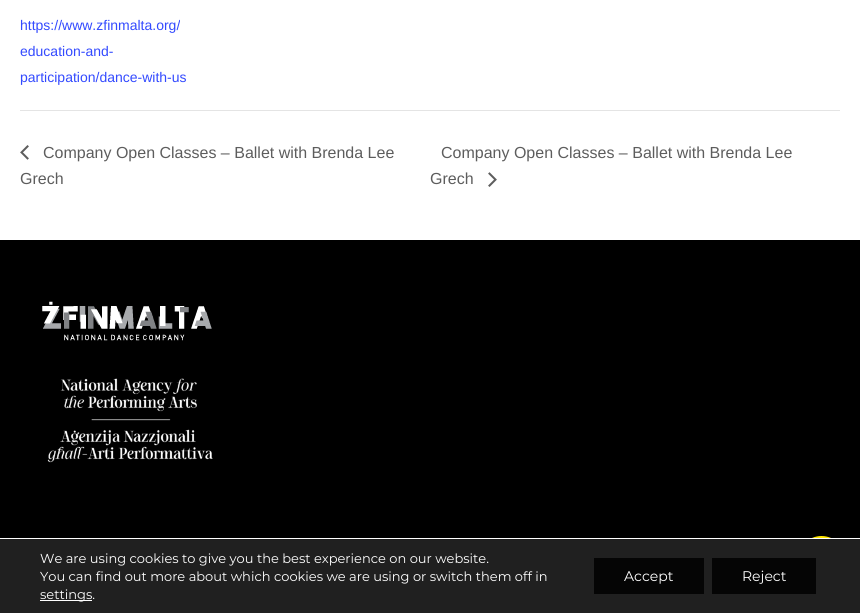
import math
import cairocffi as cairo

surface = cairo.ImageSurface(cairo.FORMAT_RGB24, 860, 613)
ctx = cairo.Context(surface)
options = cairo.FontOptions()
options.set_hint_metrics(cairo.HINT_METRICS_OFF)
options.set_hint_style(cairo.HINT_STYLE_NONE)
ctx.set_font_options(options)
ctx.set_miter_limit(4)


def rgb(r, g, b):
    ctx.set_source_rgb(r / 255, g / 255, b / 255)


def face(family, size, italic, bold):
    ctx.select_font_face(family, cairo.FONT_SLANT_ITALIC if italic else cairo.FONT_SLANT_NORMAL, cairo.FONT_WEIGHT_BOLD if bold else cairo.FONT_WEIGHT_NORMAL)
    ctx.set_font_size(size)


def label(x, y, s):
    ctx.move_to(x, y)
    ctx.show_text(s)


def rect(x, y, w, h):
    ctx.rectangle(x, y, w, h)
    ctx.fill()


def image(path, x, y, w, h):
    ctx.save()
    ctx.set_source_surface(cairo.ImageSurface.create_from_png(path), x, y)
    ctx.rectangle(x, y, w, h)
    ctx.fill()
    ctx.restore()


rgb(255, 255, 255)
ctx.paint()
face('Liberation Sans', 14, 0, 0)
rgb(51, 74, 255)
label(20, 30, 'https://www.zfinmalta.org/')
label(20, 56, 'education-and-')
label(20, 82, 'participation/dance-with-us')
rgb(228, 228, 228)
rect(20, 110, 820, 1)
image('image0.png', 20, 145, 9, 15)
face('Liberation Sans', 16, 0, 0)
rgb(93, 93, 93)
label(43, 158, 'Company Open Classes – Ballet with Brenda Lee')
label(20, 184, 'Grech')
label(441, 158, 'Company Open Classes – Ballet with Brenda Lee')
label(430, 184, 'Grech')
image('image1.png', 488, 172, 9, 15)
rgb(0, 0, 0)
rect(0, 240, 860, 298)
image('image2.png', 42, 301, 170, 40)
image('image3.png', 47, 378, 166, 85)
rgb(255, 230, 0)
ctx.arc(821.5, 559.5, 23.5, 0, 2 * math.pi)
ctx.fill()
rgb(32, 32, 32)
rect(0, 539, 860, 74)
rgb(255, 255, 255)
rect(810, 538, 23, 1)
face('Montserrat', 13, 0, 0)
label(40, 563, 'We are using cookies to give you the best experience on our website.')
label(40, 581, 'You can find out more about which cookies we are using or switch them off in')
rect(40, 600, 52, 1)
label(40, 599, 'settings.')
rgb(5, 5, 5)
rect(594, 558, 110, 36)
face('Montserrat', 14, 0, 0)
rgb(255, 255, 255)
label(624, 581, 'Accept')
rgb(5, 5, 5)
rect(712, 558, 104, 36)
rgb(255, 255, 255)
label(742, 581, 'Reject')
surface.write_to_png('render.png')
